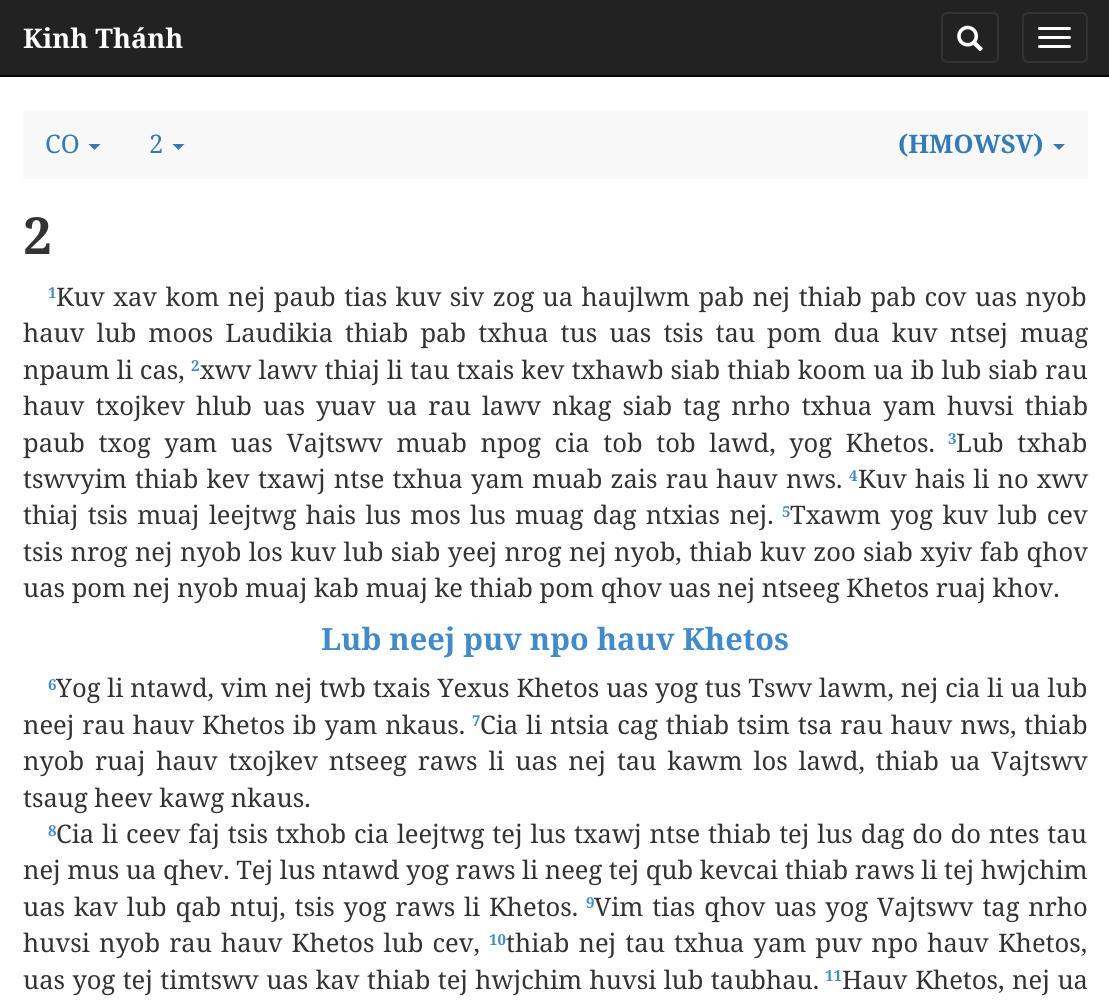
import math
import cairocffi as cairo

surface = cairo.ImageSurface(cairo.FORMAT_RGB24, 1109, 1008)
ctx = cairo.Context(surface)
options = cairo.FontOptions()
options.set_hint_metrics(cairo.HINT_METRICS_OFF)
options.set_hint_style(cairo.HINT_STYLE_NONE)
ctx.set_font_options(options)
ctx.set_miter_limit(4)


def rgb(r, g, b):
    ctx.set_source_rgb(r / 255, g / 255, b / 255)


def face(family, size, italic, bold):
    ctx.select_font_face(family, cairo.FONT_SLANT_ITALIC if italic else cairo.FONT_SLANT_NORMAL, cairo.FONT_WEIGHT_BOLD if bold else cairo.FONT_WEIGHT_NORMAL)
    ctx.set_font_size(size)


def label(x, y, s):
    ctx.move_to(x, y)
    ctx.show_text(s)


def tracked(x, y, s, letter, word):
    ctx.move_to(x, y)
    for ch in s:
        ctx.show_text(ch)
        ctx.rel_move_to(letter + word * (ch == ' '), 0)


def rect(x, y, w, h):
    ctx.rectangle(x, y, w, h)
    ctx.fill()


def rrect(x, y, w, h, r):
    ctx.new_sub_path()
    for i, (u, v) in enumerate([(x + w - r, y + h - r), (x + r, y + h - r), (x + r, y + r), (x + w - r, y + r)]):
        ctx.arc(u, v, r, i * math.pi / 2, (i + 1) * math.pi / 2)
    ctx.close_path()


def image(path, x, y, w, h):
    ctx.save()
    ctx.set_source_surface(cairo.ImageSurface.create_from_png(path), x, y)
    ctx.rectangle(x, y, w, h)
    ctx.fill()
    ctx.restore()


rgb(255, 255, 255)
ctx.paint()
rgb(34, 34, 34)
rect(0, 0, 1109, 75)
rgb(8, 8, 8)
rect(0, 75, 1109, 2)
face('Noto Serif', 27, 0, 1)
rgb(255, 255, 255)
label(23, 48, 'Kinh Thánh')
rrect(942, 13, 56, 49, 5)
rgb(51, 51, 51)
ctx.stroke()
image('image0.png', 957, 25, 26, 27)
rrect(1023, 13, 64, 49, 5)
ctx.stroke()
rgb(255, 255, 255)
rrect(1038, 27, 33, 3, 1.5)
ctx.fill()
rrect(1038, 36, 33, 3, 1.5)
ctx.fill()
rrect(1038, 45, 33, 3, 1.5)
ctx.fill()
rgb(248, 248, 248)
rect(23, 111, 1065, 68)
face('Noto Serif', 25.5, 0, 0)
rgb(51, 122, 183)
label(45, 153, 'CO')
ctx.new_path()
ctx.move_to(88.5, 144)
ctx.line_to(100.5, 144)
ctx.line_to(94.5, 150)
ctx.close_path()
ctx.fill()
label(149, 153, '2')
ctx.new_path()
ctx.move_to(172.5, 144)
ctx.line_to(184.5, 144)
ctx.line_to(178.5, 150)
ctx.close_path()
ctx.fill()
face('Noto Serif', 25.5, 0, 1)
label(898, 153, '(HMOWSV)')
ctx.new_path()
ctx.move_to(1053, 144)
ctx.line_to(1065, 144)
ctx.line_to(1059, 150)
ctx.close_path()
ctx.fill()
face('Noto Serif', 51, 0, 1)
rgb(51, 51, 51)
label(23, 254, '2')
face('Noto Serif', 15, 0, 1)
rgb(66, 139, 202)
label(48, 298, '1')
face('Noto Serif', 25.5, 0, 0)
rgb(51, 51, 51)
tracked(56, 306, 'Kuv xav kom nej paub tias kuv siv zog ua haujlwm pab nej thiab pab cov uas nyob', 0, 1.8)
tracked(23, 342, 'hauv lub moos Laudikia thiab pab txhua tus uas tsis tau pom dua kuv ntsej muag', 0, 5.4)
tracked(23, 379, 'npaum li cas,', 0, 0.4)
tracked(200, 379, 'xwv lawv thiaj li tau txais kev txhawb siab thiab koom ua ib lub siab rau', 0, 0.4)
face('Noto Serif', 15, 0, 1)
rgb(66, 139, 202)
label(191, 371, '2')
face('Noto Serif', 25.5, 0, 0)
rgb(51, 51, 51)
tracked(23, 415, 'hauv txojkev hlub uas yuav ua rau lawv nkag siab tag nrho txhua yam huvsi thiab', 0, 4.4)
tracked(23, 452, 'paub txog yam uas Vajtswv muab npog cia tob tob lawd, yog Khetos.', 0, 7)
face('Noto Serif', 15, 0, 1)
rgb(66, 139, 202)
label(948, 444, '3')
face('Noto Serif', 25.5, 0, 0)
rgb(51, 51, 51)
tracked(956, 452, 'Lub txhab', 0, 7)
tracked(23, 488, 'tswvyim thiab kev txawj ntse txhua yam muab zais rau hauv nws.', 0, 1.5)
face('Noto Serif', 15, 0, 1)
rgb(66, 139, 202)
label(849, 481, '4')
face('Noto Serif', 25.5, 0, 0)
rgb(51, 51, 51)
tracked(858, 488, 'Kuv hais li no xwv', 0, 1.5)
tracked(23, 524, 'thiaj tsis muaj leejtwg hais lus mos lus muag dag ntxias nej.', 0, 2.75)
face('Noto Serif', 15, 0, 1)
rgb(66, 139, 202)
label(782, 517, '5')
face('Noto Serif', 25.5, 0, 0)
rgb(51, 51, 51)
tracked(790, 524, 'Txawm yog kuv lub cev', 0, 2.75)
tracked(23, 561, 'tsis nrog nej nyob los kuv lub siab yeej nrog nej nyob, thiab kuv zoo siab xyiv fab qhov', 0, 0.8)
label(23, 597, 'uas pom nej nyob muaj kab muaj ke thiab pom qhov uas nej ntseeg Khetos ruaj khov.')
face('Noto Serif', 30.6, 0, 1)
rgb(66, 139, 202)
label(321, 650, 'Lub neej puv npo hauv Khetos')
face('Noto Serif', 15, 0, 1)
label(48, 690, '6')
face('Noto Serif', 25.5, 0, 0)
rgb(51, 51, 51)
tracked(56, 697, 'Yog li ntawd, vim nej twb txais Yexus Khetos uas yog tus Tswv lawm, nej cia li ua lub', 0, 0.25)
tracked(23, 734, 'neej rau hauv Khetos ib yam nkaus.', 0, 1.25)
face('Noto Serif', 15, 0, 1)
rgb(66, 139, 202)
label(472, 726, '7')
face('Noto Serif', 25.5, 0, 0)
rgb(51, 51, 51)
tracked(480, 734, 'Cia li ntsia cag thiab tsim tsa rau hauv nws, thiab', 0, 1.25)
tracked(23, 770, 'nyob ruaj hauv txojkev ntseeg raws li uas nej tau kawm los lawd, thiab ua Vajtswv', 0, 4.25)
label(23, 807, 'tsaug heev kawg nkaus.')
face('Noto Serif', 15, 0, 1)
rgb(66, 139, 202)
label(48, 836, '8')
face('Noto Serif', 25.5, 0, 0)
rgb(51, 51, 51)
tracked(56, 843, 'Cia li ceev faj tsis txhob cia leejtwg tej lus txawj ntse thiab tej lus dag do do ntes tau', 0, 1.25)
label(23, 879, 'nej mus ua qhev. Tej lus ntawd yog raws li neeg tej qub kevcai thiab raws li tej hwjchim')
tracked(23, 916, 'uas kav lub qab ntuj, tsis yog raws li Khetos.', 0, 2.25)
face('Noto Serif', 15, 0, 1)
rgb(66, 139, 202)
label(586, 908, '9')
face('Noto Serif', 25.5, 0, 0)
rgb(51, 51, 51)
tracked(594, 916, 'Vim tias qhov uas yog Vajtswv tag nrho', 0, 2.25)
tracked(23, 952, 'huvsi nyob rau hauv Khetos lub cev,', 0, 2.5)
face('Noto Serif', 15, 0, 1)
rgb(66, 139, 202)
label(489, 945, '10')
face('Noto Serif', 25.5, 0, 0)
rgb(51, 51, 51)
tracked(506, 952, 'thiab nej tau txhua yam puv npo hauv Khetos,', 0, 2.5)
tracked(23, 989, 'uas yog tej timtswv uas kav thiab tej hwjchim huvsi lub taubhau.', 0, 0.75)
face('Noto Serif', 15, 0, 1)
rgb(66, 139, 202)
label(825, 981, '11')
face('Noto Serif', 25.5, 0, 0)
rgb(51, 51, 51)
tracked(842, 989, 'Hauv Khetos, nej ua', 0, 1)
surface.write_to_png('render.png')
